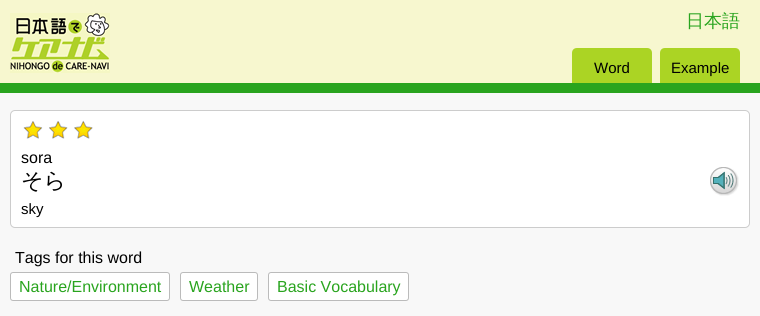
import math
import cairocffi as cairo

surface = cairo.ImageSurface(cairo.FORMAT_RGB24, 760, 316)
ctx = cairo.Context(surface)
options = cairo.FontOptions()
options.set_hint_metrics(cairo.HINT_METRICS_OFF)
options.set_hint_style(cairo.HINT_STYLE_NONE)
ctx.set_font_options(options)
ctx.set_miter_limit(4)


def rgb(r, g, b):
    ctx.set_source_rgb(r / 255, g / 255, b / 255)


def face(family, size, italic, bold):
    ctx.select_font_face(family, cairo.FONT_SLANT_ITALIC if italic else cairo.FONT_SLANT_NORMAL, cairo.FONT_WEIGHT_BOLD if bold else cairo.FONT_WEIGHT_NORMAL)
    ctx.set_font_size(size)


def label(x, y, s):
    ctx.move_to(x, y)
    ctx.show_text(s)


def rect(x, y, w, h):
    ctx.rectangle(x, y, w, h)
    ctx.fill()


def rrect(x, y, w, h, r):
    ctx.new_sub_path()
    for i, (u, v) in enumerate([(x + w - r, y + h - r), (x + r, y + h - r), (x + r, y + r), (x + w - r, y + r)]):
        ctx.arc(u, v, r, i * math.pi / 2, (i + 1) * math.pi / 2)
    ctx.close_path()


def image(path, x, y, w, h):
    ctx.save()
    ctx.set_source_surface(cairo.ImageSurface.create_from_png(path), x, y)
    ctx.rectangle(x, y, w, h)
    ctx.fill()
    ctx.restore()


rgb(247, 247, 207)
ctx.paint()
face('WenQuanYi Zen Hei Medium', 18, 0, 0)
rgb(41, 164, 30)
label(686, 27, '日本語')
image('image0.png', 10, 13, 100, 60)
rgb(171, 212, 36)
ctx.new_path()
ctx.move_to(577, 48)
ctx.line_to(647, 48)
ctx.curve_to(650, 48, 652, 50, 652, 53)
ctx.line_to(652, 83)
ctx.line_to(572, 83)
ctx.line_to(572, 53)
ctx.curve_to(572, 50, 574, 48, 577, 48)
ctx.close_path()
ctx.fill()
face('Liberation Sans', 15, 0, 0)
rgb(0, 0, 0)
label(594, 73, 'Word')
rgb(171, 212, 36)
ctx.new_path()
ctx.move_to(665, 48)
ctx.line_to(735, 48)
ctx.curve_to(738, 48, 740, 50, 740, 53)
ctx.line_to(740, 83)
ctx.line_to(660, 83)
ctx.line_to(660, 53)
ctx.curve_to(660, 50, 662, 48, 665, 48)
ctx.close_path()
ctx.fill()
rgb(0, 0, 0)
label(671, 73, 'Example')
rgb(248, 248, 248)
rect(0, 93, 760, 223)
rgb(41, 164, 30)
rect(0, 83, 760, 10)
rgb(255, 255, 255)
rrect(10.5, 110.5, 739, 117, 4.5)
ctx.fill_preserve()
rgb(204, 204, 204)
ctx.set_line_width(1)
ctx.stroke()
image('image1.png', 23, 120, 70, 19)
face('Liberation Sans', 16, 0, 0)
rgb(0, 0, 0)
label(21, 163, 'sora')
face('WenQuanYi Zen Hei Medium', 22, 0, 0)
label(21, 188, 'そら')
image('image2.png', 710, 167, 29, 29)
face('Liberation Sans', 15, 0, 0)
label(21, 214, 'sky')
face('Liberation Sans', 16, 0, 0)
label(15, 263, 'Tags for this word')
rgb(255, 255, 255)
rrect(10.5, 272.5, 159, 28, 2.5)
ctx.fill_preserve()
rgb(187, 187, 187)
ctx.stroke()
rgb(41, 164, 30)
label(19, 292, 'Nature/Environment')
rgb(255, 255, 255)
rrect(180.5, 272.5, 77, 28, 2.5)
ctx.fill_preserve()
rgb(187, 187, 187)
ctx.stroke()
rgb(41, 164, 30)
label(189, 292, 'Weather')
rgb(255, 255, 255)
rrect(268.5, 272.5, 140, 28, 2.5)
ctx.fill_preserve()
rgb(187, 187, 187)
ctx.stroke()
rgb(41, 164, 30)
label(277, 292, 'Basic Vocabulary')
surface.write_to_png('render.png')
